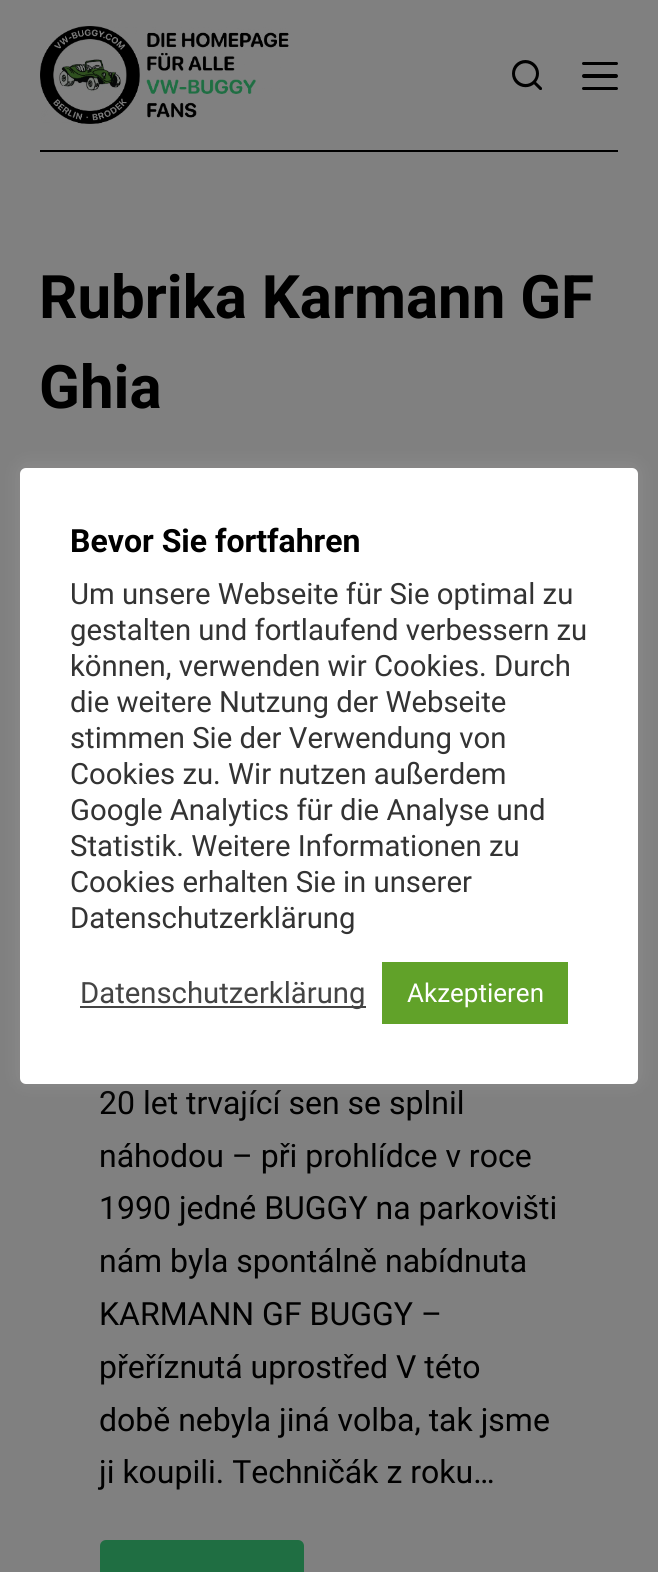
import math
import cairocffi as cairo

surface = cairo.ImageSurface(cairo.FORMAT_RGB24, 658, 1572)
ctx = cairo.Context(surface)
options = cairo.FontOptions()
options.set_hint_metrics(cairo.HINT_METRICS_OFF)
options.set_hint_style(cairo.HINT_STYLE_NONE)
ctx.set_font_options(options)
ctx.set_miter_limit(4)


def rgb(r, g, b):
    ctx.set_source_rgb(r / 255, g / 255, b / 255)


def face(family, size, italic, bold):
    ctx.select_font_face(family, cairo.FONT_SLANT_ITALIC if italic else cairo.FONT_SLANT_NORMAL, cairo.FONT_WEIGHT_BOLD if bold else cairo.FONT_WEIGHT_NORMAL)
    ctx.set_font_size(size)


def label(x, y, s):
    ctx.move_to(x, y)
    ctx.show_text(s)


def rect(x, y, w, h):
    ctx.rectangle(x, y, w, h)
    ctx.fill()


def rrect(x, y, w, h, r):
    ctx.new_sub_path()
    for i, (u, v) in enumerate([(x + w - r, y + h - r), (x + r, y + h - r), (x + r, y + r), (x + w - r, y + r)]):
        ctx.arc(u, v, r, i * math.pi / 2, (i + 1) * math.pi / 2)
    ctx.close_path()


def soft_shadow(x, y, w, h, r, blur, alpha):
    ctx.push_group_with_content(cairo.CONTENT_ALPHA)
    ctx.set_operator(cairo.OPERATOR_SOURCE)
    for i in range(15, -16, -2):
        e = blur * i / 6
        if min(w, h) + 2 * e > 0:
            ctx.set_source_rgba(0, 0, 0, alpha * math.erfc((i - 1) / 8.5) / 2)
            rrect(x - e, y - e, w + 2 * e, h + 2 * e, max(0, min(r + e + blur * .6, min(w, h) / 2 + e)))
            ctx.fill()
    ctx.mask(ctx.pop_group())


def image(path, x, y, w, h):
    ctx.save()
    ctx.set_source_surface(cairo.ImageSurface.create_from_png(path), x, y)
    ctx.rectangle(x, y, w, h)
    ctx.fill()
    ctx.restore()


rgb(128, 128, 128)
ctx.paint()
rgb(0, 0, 0)
rect(40, 150, 578, 2)
image('image0.png', 40, 26, 249, 98)
image('image1.png', 512, 60, 30, 30)
rrect(582, 62, 36, 3, 1.5)
ctx.fill()
rrect(582, 74, 36, 4, 2)
ctx.fill()
rrect(582, 87, 36, 3, 1.5)
ctx.fill()
face('Roboto', 60, 0, 1)
label(39, 318, 'Rubrika Karmann GF')
label(39, 408, 'Ghia')
face('Roboto', 32, 0, 0)
label(99, 1114, '20 let trvající sen se splnil')
label(99, 1167, 'náhodou – při prohlídce v roce')
label(99, 1219, '1990 jedné BUGGY na parkovišti')
label(99, 1272, 'nám byla spontálně nabídnuta')
label(99, 1325, 'KARMANN GF BUGGY –')
label(99, 1378, 'přeříznutá uprostřed V této')
label(99, 1431, 'době nebyla jiná volba, tak jsme')
label(99, 1483, 'ji koupili. Techničák z roku…')
rgb(31, 110, 66)
rrect(100, 1540, 204, 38, 6)
ctx.fill()
rgb(172, 171, 171)
soft_shadow(20, 466, 618, 616, 6, 10, 0.3)
rgb(255, 255, 255)
rrect(20, 468, 618, 616, 6)
ctx.fill()
face('Roboto', 32, 0, 1)
rgb(0, 0, 0)
label(70, 552, 'Bevor Sie fortfahren')
face('Roboto', 29.3, 0, 0)
rgb(51, 51, 51)
label(70, 604, 'Um unsere Webseite für Sie optimal zu')
label(70, 640, 'gestalten und fortlaufend verbessern zu')
label(70, 676, 'können, verwenden wir Cookies. Durch')
label(70, 712, 'die weitere Nutzung der Webseite')
label(70, 748, 'stimmen Sie der Verwendung von')
label(70, 784, 'Cookies zu. Wir nutzen außerdem')
label(70, 820, 'Google Analytics für die Analyse und')
label(70, 856, 'Statistik. Weitere Informationen zu')
label(70, 892, 'Cookies erhalten Sie in unserer')
label(70, 928, 'Datenschutzerklärung')
rgb(68, 68, 68)
rect(80, 1006, 286, 2)
label(80, 1003, 'Datenschutzerklärung')
rgb(97, 162, 41)
rect(382, 962, 186, 62)
face('Roboto', 26, 0, 0)
rgb(255, 255, 255)
label(407, 1002, 'Akzeptieren')
surface.write_to_png('render.png')
